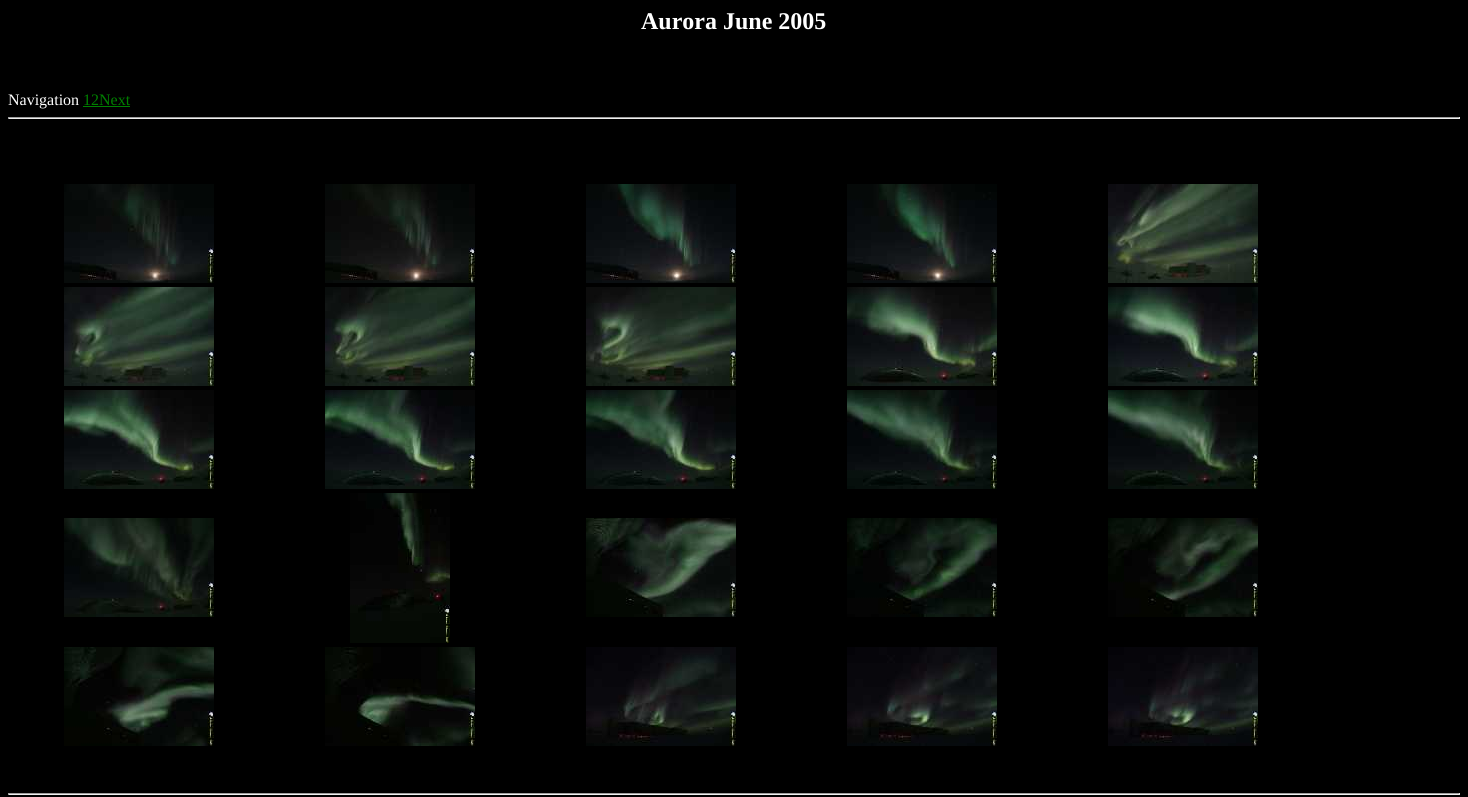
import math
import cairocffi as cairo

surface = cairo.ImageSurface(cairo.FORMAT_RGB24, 1468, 797)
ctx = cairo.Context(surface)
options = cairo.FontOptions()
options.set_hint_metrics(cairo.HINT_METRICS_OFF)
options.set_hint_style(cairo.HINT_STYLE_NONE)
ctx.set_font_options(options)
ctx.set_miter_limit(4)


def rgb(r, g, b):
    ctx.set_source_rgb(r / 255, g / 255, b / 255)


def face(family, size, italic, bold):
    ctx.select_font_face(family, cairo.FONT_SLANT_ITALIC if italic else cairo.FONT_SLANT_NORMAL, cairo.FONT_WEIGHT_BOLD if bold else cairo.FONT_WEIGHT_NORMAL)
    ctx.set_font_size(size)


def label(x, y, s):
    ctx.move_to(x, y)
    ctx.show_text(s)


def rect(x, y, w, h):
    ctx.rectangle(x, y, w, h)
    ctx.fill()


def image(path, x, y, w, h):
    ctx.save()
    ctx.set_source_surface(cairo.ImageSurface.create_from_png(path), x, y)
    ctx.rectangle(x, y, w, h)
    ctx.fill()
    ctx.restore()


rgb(0, 0, 0)
ctx.paint()
face('Liberation Serif', 24, 0, 1)
rgb(255, 255, 255)
label(641, 29, 'Aurora June 2005')
face('Liberation Serif', 16, 0, 0)
label(8, 105, 'Navigation')
rgb(0, 128, 0)
label(83, 105, '12Next')
rect(83, 106, 47, 1)
rgb(159, 159, 159)
rect(8, 117, 1452, 1)
rgb(238, 238, 238)
rect(1459, 117, 1, 2)
rect(8, 118, 1452, 1)
rgb(159, 159, 159)
rect(8, 117, 1, 2)
image('image0.png', 64, 184, 150, 99)
image('image1.png', 325, 184, 150, 99)
image('image2.png', 586, 184, 150, 99)
image('image3.png', 847, 184, 150, 99)
image('image4.png', 1108, 184, 150, 99)
image('image5.png', 64, 287, 150, 99)
image('image6.png', 325, 287, 150, 99)
image('image7.png', 586, 287, 150, 99)
image('image8.png', 847, 287, 150, 99)
image('image9.png', 1108, 287, 150, 99)
image('image10.png', 64, 390, 150, 99)
image('image11.png', 325, 390, 150, 99)
image('image12.png', 586, 390, 150, 99)
image('image13.png', 847, 390, 150, 99)
image('image14.png', 1108, 390, 150, 99)
image('image15.png', 64, 518, 150, 99)
image('image16.png', 350, 493, 100, 150)
image('image17.png', 586, 518, 150, 99)
image('image18.png', 847, 518, 150, 99)
image('image19.png', 1108, 518, 150, 99)
image('image20.png', 64, 647, 150, 99)
image('image21.png', 325, 647, 150, 99)
image('image22.png', 586, 647, 150, 99)
image('image23.png', 847, 647, 150, 99)
image('image24.png', 1108, 647, 150, 99)
rect(8, 793, 1452, 1)
rgb(238, 238, 238)
rect(1459, 793, 1, 2)
rect(8, 794, 1452, 1)
rgb(159, 159, 159)
rect(8, 793, 1, 2)
surface.write_to_png('render.png')
